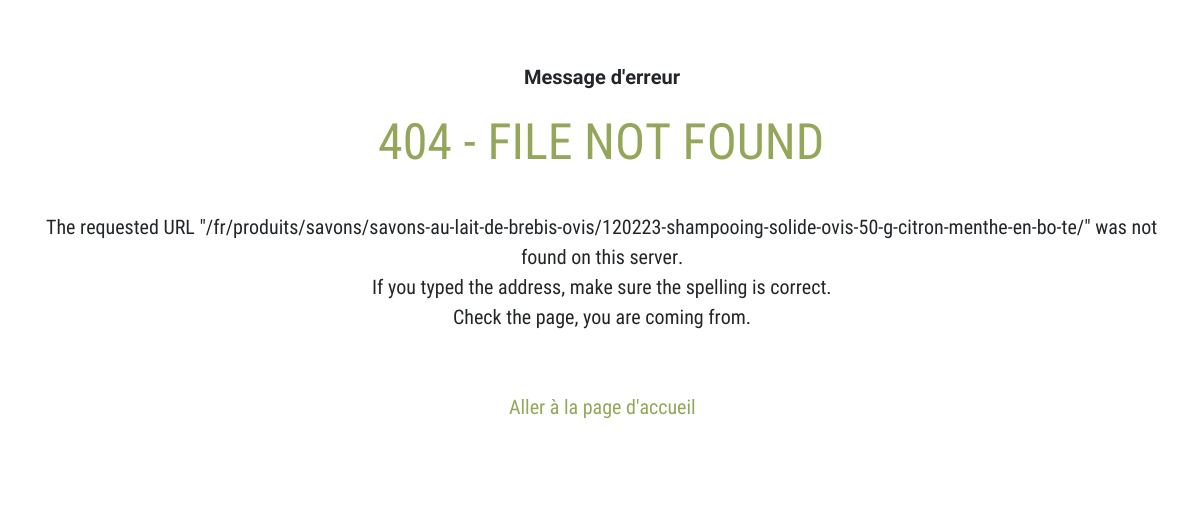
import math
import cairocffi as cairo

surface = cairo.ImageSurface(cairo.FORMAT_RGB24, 1203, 516)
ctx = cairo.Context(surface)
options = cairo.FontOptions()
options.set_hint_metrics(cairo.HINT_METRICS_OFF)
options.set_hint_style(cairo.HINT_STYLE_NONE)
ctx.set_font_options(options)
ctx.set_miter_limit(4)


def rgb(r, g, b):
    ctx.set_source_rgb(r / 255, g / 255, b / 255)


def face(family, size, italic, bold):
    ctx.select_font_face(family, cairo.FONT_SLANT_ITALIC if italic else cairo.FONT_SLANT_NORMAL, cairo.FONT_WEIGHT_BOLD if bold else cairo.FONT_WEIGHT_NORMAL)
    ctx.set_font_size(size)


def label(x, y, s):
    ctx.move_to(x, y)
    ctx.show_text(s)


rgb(255, 255, 255)
ctx.paint()
face('Roboto', 20, 0, 1)
rgb(35, 38, 41)
label(524, 84, 'Message d\'erreur')
face('Roboto Condensed', 50, 0, 0)
rgb(147, 166, 89)
label(378, 159, '404 - FILE NOT FOUND')
face('Roboto Condensed', 20, 0, 0)
rgb(35, 38, 41)
label(46, 234, 'The requested URL "/fr/produits/savons/savons-au-lait-de-brebis-ovis/120223-shampooing-solide-ovis-50-g-citron-menthe-en-bo-te/" was not')
label(521, 264, 'found on this server.')
label(372, 294, 'If you typed the address, make sure the spelling is correct.')
label(453, 324, 'Check the page, you are coming from.')
rgb(147, 166, 89)
label(509, 414, 'Aller à la page d\'accueil')
surface.write_to_png('render.png')
